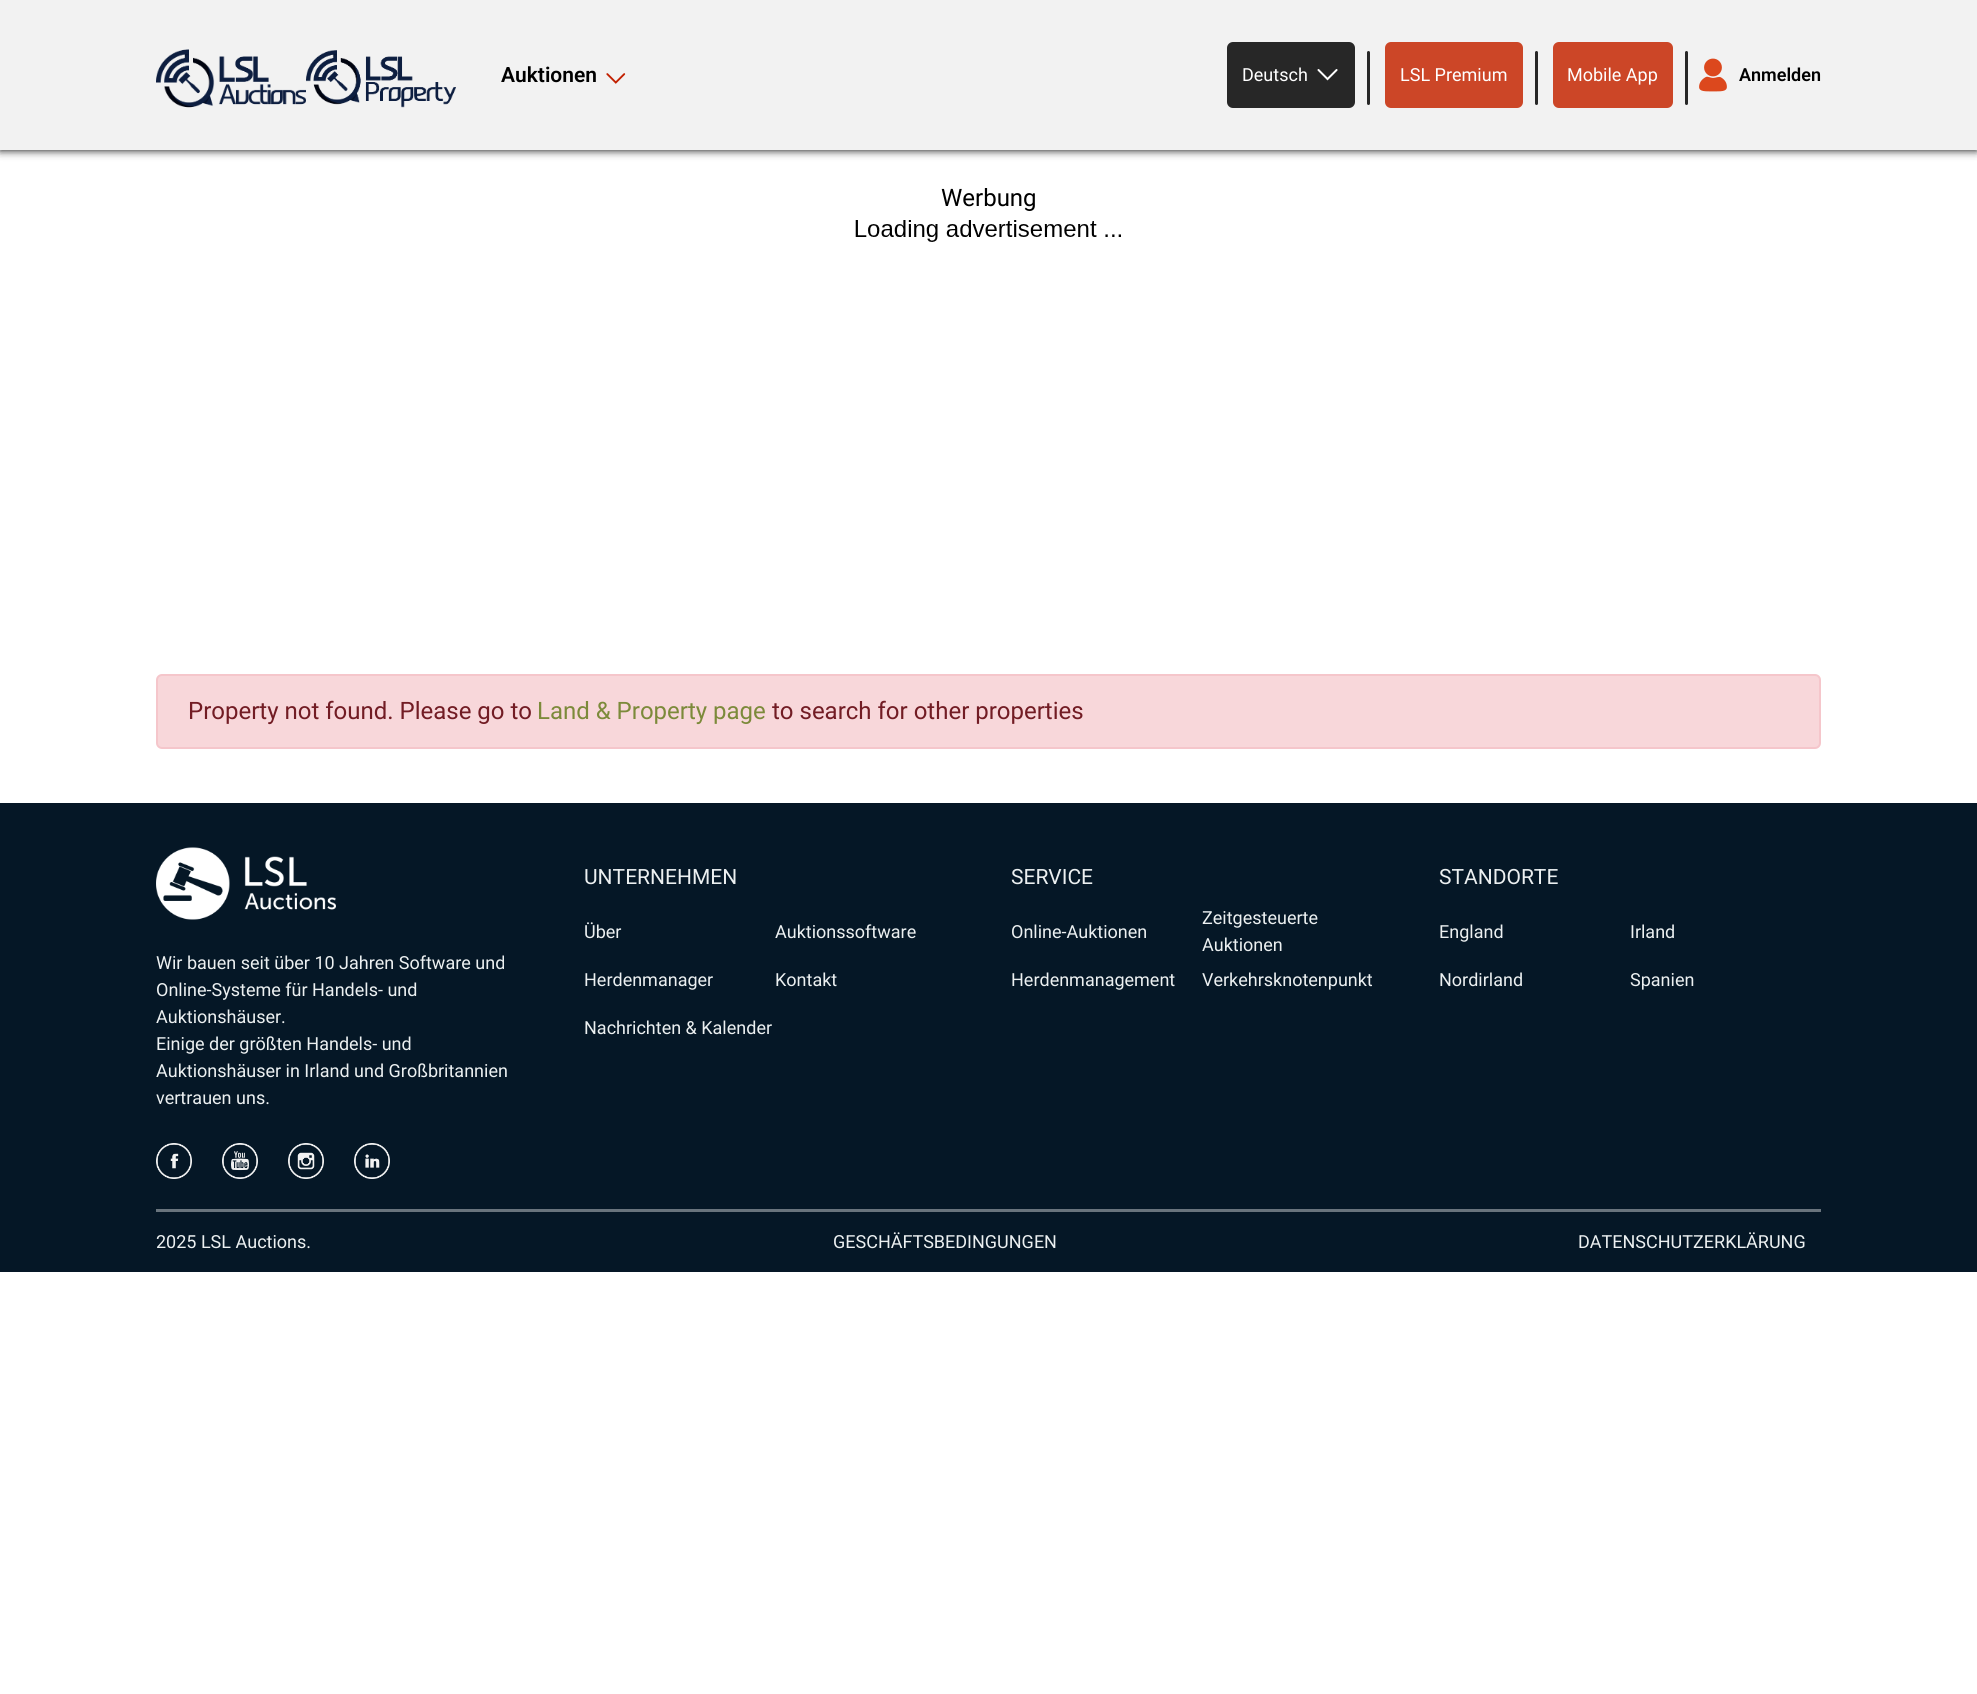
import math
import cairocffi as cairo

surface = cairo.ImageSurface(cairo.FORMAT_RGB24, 1977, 1694)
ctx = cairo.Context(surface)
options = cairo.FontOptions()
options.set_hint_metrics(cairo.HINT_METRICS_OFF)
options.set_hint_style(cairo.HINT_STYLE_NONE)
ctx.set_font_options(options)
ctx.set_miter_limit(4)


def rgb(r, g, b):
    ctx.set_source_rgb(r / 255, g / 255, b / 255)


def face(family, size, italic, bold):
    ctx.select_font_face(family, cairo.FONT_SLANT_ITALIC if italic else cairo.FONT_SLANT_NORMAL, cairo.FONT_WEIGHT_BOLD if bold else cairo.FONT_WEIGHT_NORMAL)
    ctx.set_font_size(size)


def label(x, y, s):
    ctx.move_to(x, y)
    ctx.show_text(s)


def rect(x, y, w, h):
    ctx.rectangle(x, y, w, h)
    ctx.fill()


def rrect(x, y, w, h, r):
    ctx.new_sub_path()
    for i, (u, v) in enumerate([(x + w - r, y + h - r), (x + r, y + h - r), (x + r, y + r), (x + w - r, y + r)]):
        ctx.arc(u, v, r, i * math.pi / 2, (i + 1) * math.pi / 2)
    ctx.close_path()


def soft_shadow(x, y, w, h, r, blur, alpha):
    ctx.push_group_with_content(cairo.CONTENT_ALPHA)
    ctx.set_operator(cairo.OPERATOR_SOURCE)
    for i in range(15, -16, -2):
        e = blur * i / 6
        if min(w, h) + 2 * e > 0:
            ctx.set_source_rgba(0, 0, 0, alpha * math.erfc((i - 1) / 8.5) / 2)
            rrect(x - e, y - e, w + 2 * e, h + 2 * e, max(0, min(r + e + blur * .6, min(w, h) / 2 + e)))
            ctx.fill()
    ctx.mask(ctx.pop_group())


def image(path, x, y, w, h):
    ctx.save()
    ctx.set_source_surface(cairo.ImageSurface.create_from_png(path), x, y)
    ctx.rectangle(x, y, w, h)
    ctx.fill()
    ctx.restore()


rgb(255, 255, 255)
ctx.paint()
rgb(0, 0, 0)
soft_shadow(0, 0, 1977, 150, 0, 4.5, 1)
rgb(242, 242, 242)
rect(0, 0, 1977, 150)
image('image0.png', 156, 49, 150, 59)
image('image1.png', 306, 50, 150, 58)
face('Roboto SemiBold', 21, 0, 0)
rgb(0, 0, 0)
label(501, 82, 'Auktionen')
image('image2.png', 606, 73, 20, 11)
rgb(39, 39, 39)
rrect(1227, 42, 128, 66, 6)
ctx.fill()
face('Roboto', 18, 0, 0)
rgb(255, 255, 255)
label(1242, 81, 'Deutsch')
image('image3.png', 1317, 69, 21, 12)
rgb(39, 39, 39)
rrect(1367, 51, 3, 54, 1.5)
ctx.fill()
rgb(204, 70, 39)
rrect(1385, 42, 138, 66, 6)
ctx.fill()
rgb(255, 255, 255)
label(1400, 81, 'LSL Premium')
rgb(39, 39, 39)
rrect(1535, 51, 3, 54, 1.5)
ctx.fill()
rgb(204, 70, 39)
rrect(1553, 42, 120, 66, 6)
ctx.fill()
rgb(255, 255, 255)
label(1567, 81, 'Mobile App')
rgb(39, 39, 39)
rrect(1685, 51, 3, 54, 1.5)
ctx.fill()
image('image4.png', 1699, 58, 28, 34)
face('Roboto SemiBold', 18, 0, 0)
rgb(0, 0, 0)
label(1739, 81, 'Anmelden')
face('Roboto', 24, 0, 0)
label(941, 206, 'Werbung')
image('image5.png', 855, 220, 266, 22)
rgb(248, 215, 218)
rrect(157, 675, 1663, 73, 5)
ctx.fill_preserve()
rgb(245, 198, 203)
ctx.stroke()
rgb(114, 28, 36)
label(188, 719, 'Property not found. Please go to')
rgb(124, 138, 58)
label(537, 719, 'Land & Property page')
rgb(114, 28, 36)
label(772, 719, 'to search for other properties')
rgb(5, 23, 38)
rect(0, 803, 1977, 469)
image('image6.png', 156, 847, 180, 73)
face('Roboto', 18, 0, 0)
rgb(236, 240, 241)
label(156, 969, 'Wir bauen seit über 10 Jahren Software und')
label(156, 996, 'Online-Systeme für Handels- und')
label(156, 1023, 'Auktionshäuser.')
label(156, 1050, 'Einige der größten Handels- und')
label(156, 1077, 'Auktionshäuser in Irland und Großbritannien')
label(156, 1104, 'vertrauen uns.')
image('image7.png', 156, 1143, 36, 36)
image('image8.png', 222, 1143, 36, 36)
image('image9.png', 288, 1143, 36, 36)
image('image10.png', 354, 1143, 36, 36)
face('Roboto', 21, 0, 0)
label(584, 884, 'UNTERNEHMEN')
face('Roboto', 18, 0, 0)
label(584, 938, 'Über')
label(775, 938, 'Auktionssoftware')
label(584, 986, 'Herdenmanager')
label(775, 986, 'Kontakt')
label(584, 1034, 'Nachrichten & Kalender')
face('Roboto', 21, 0, 0)
label(1011, 884, 'SERVICE')
face('Roboto', 18, 0, 0)
label(1011, 938, 'Online-Auktionen')
label(1202, 924, 'Zeitgesteuerte')
label(1202, 951, 'Auktionen')
label(1011, 986, 'Herdenmanagement')
label(1202, 986, 'Verkehrsknotenpunkt')
face('Roboto', 21, 0, 0)
label(1439, 884, 'STANDORTE')
face('Roboto', 18, 0, 0)
label(1439, 938, 'England')
label(1630, 938, 'Irland')
label(1439, 986, 'Nordirland')
label(1630, 986, 'Spanien')
rgb(105, 116, 125)
rect(156, 1209, 1665, 3)
rgb(236, 240, 241)
label(156, 1248, '2025 LSL Auctions.')
label(833, 1248, 'GESCHÄFTSBEDINGUNGEN')
label(1578, 1248, 'DATENSCHUTZERKLÄRUNG')
surface.write_to_png('render.png')
